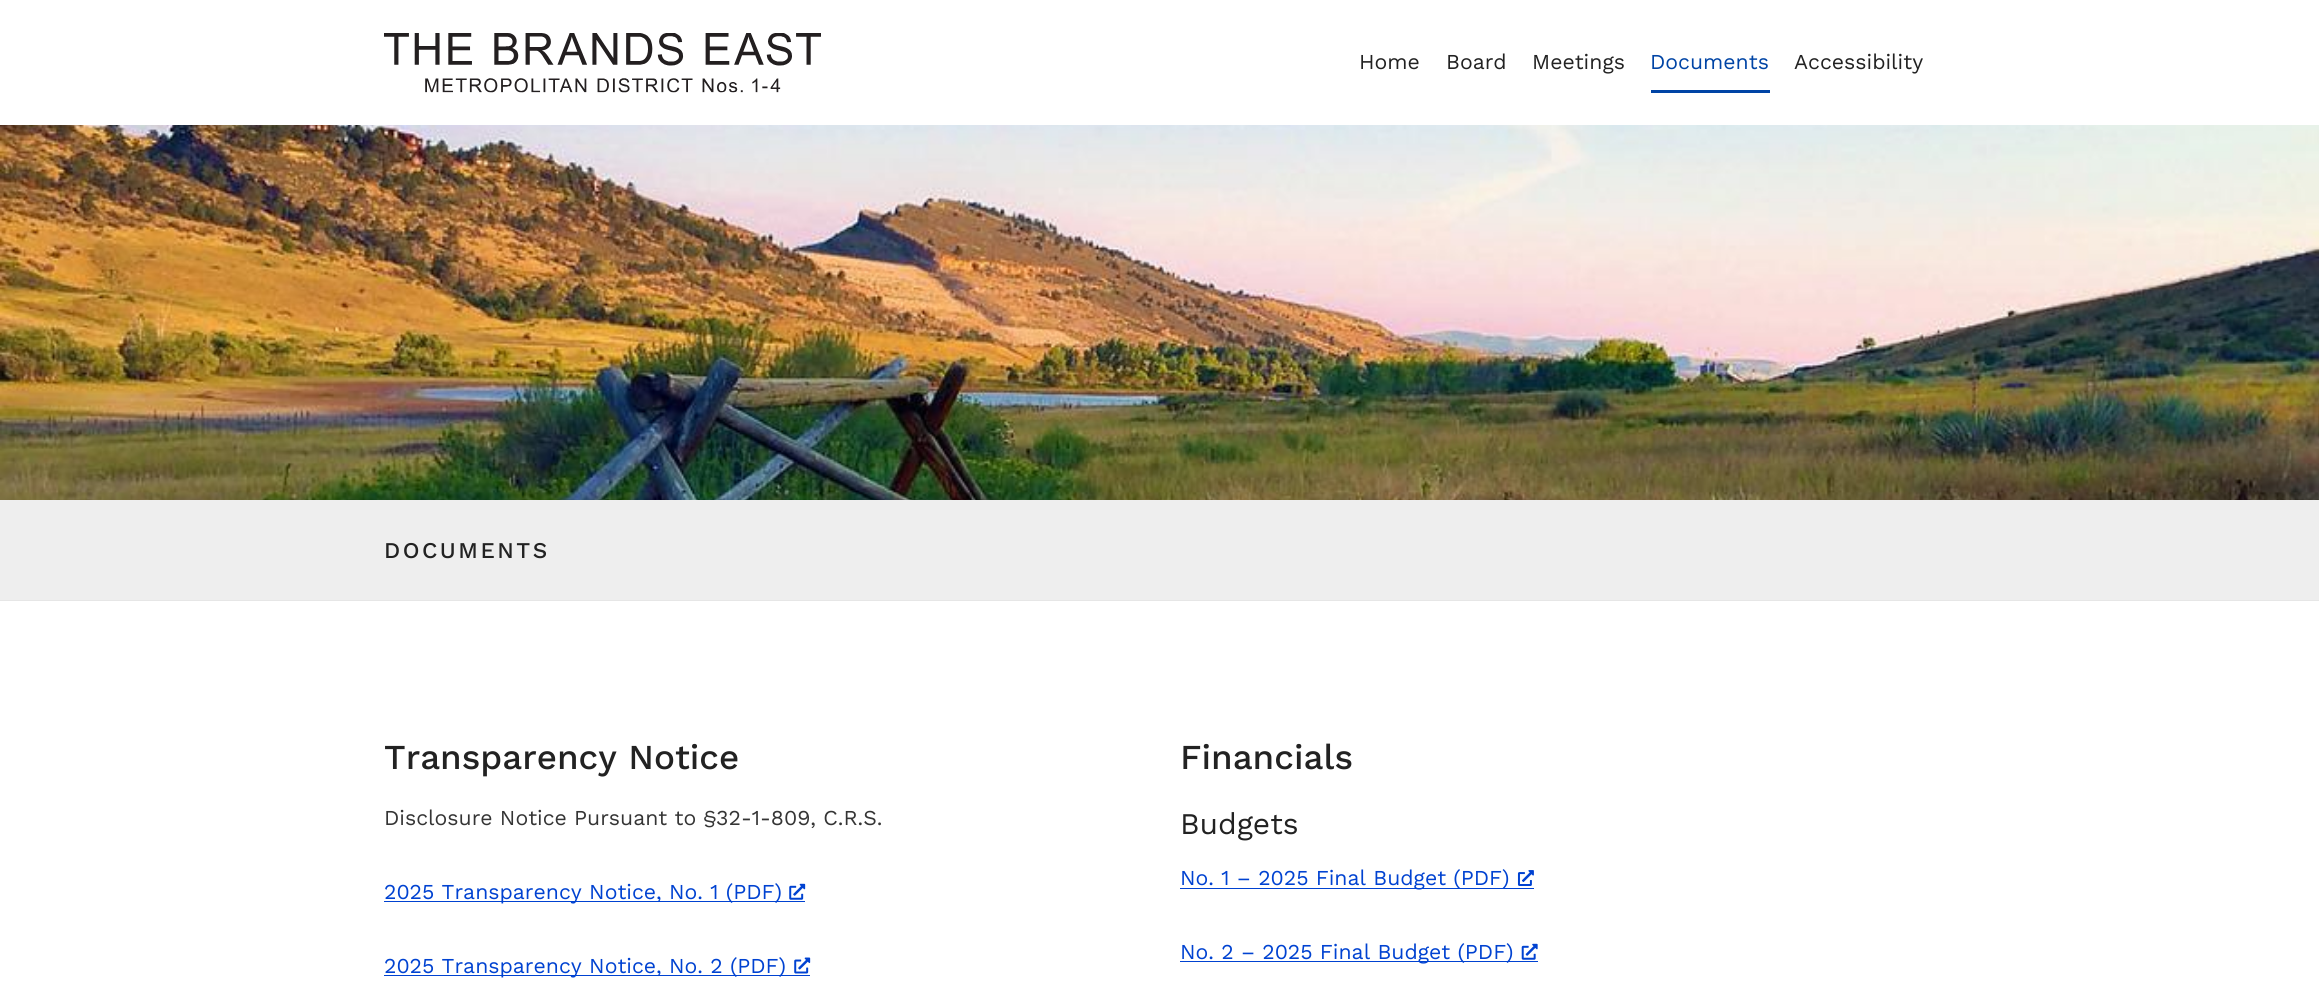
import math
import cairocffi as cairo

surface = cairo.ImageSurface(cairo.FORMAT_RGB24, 2319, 990)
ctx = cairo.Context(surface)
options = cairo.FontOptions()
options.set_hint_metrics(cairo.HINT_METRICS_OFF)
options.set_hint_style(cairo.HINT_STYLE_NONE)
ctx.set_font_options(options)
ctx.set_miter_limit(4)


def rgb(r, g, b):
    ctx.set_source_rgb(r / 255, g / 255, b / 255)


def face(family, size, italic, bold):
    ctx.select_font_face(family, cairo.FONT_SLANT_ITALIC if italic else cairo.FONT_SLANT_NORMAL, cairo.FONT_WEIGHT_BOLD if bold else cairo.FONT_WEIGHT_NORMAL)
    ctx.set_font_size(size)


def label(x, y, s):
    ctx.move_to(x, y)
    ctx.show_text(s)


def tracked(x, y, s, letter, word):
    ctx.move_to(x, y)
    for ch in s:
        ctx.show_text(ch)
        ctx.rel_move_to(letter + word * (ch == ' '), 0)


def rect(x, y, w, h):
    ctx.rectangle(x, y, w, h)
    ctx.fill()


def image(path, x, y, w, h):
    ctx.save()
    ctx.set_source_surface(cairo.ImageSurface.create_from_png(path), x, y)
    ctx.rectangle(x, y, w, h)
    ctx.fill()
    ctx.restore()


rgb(255, 255, 255)
ctx.paint()
image('image0.png', 384, 33, 437, 60)
face('Work Sans', 21.25, 0, 0)
rgb(34, 34, 34)
label(1359, 69, 'Home')
label(1446, 69, 'Board')
label(1532, 69, 'Meetings')
rgb(0, 68, 165)
label(1650, 69, 'Documents')
rect(1651, 90, 119, 3)
rgb(34, 34, 34)
label(1794, 69, 'Accessibility')
image('image1.png', 0, 125, 2319, 375)
rgb(238, 238, 238)
rect(0, 500, 2319, 100)
rgb(230, 230, 230)
rect(0, 600, 2319, 1)
face('Work Sans Medium', 22.5, 0, 0)
rgb(34, 34, 34)
tracked(384, 558, 'DOCUMENTS', 2.5, 0)
face('Work Sans Medium', 35, 0, 0)
label(384, 769, 'Transparency Notice')
face('Work Sans', 21.25, 0, 0)
rgb(53, 53, 53)
label(384, 825, 'Disclosure Notice Pursuant to §32-1-809, C.R.S.')
rgb(0, 66, 209)
rect(384, 901, 421, 1)
label(384, 899, '2025 Transparency Notice, No. 1 (PDF)')
image('image2.png', 789, 883, 17, 17)
rect(384, 975, 426, 1)
label(384, 973, '2025 Transparency Notice, No. 2 (PDF)')
image('image3.png', 794, 957, 17, 17)
face('Work Sans Medium', 35, 0, 0)
rgb(34, 34, 34)
label(1180, 769, 'Financials')
face('Work Sans', 30, 0, 0)
label(1180, 834, 'Budgets')
rgb(0, 66, 209)
rect(1180, 888, 354, 1)
face('Work Sans', 21.25, 0, 0)
label(1180, 885, 'No. 1 – 2025 Final Budget (PDF)')
image('image4.png', 1517, 870, 17, 16)
rect(1180, 961, 358, 1)
label(1180, 959, 'No. 2 – 2025 Final Budget (PDF)')
image('image5.png', 1521, 943, 17, 17)
surface.write_to_png('render.png')
